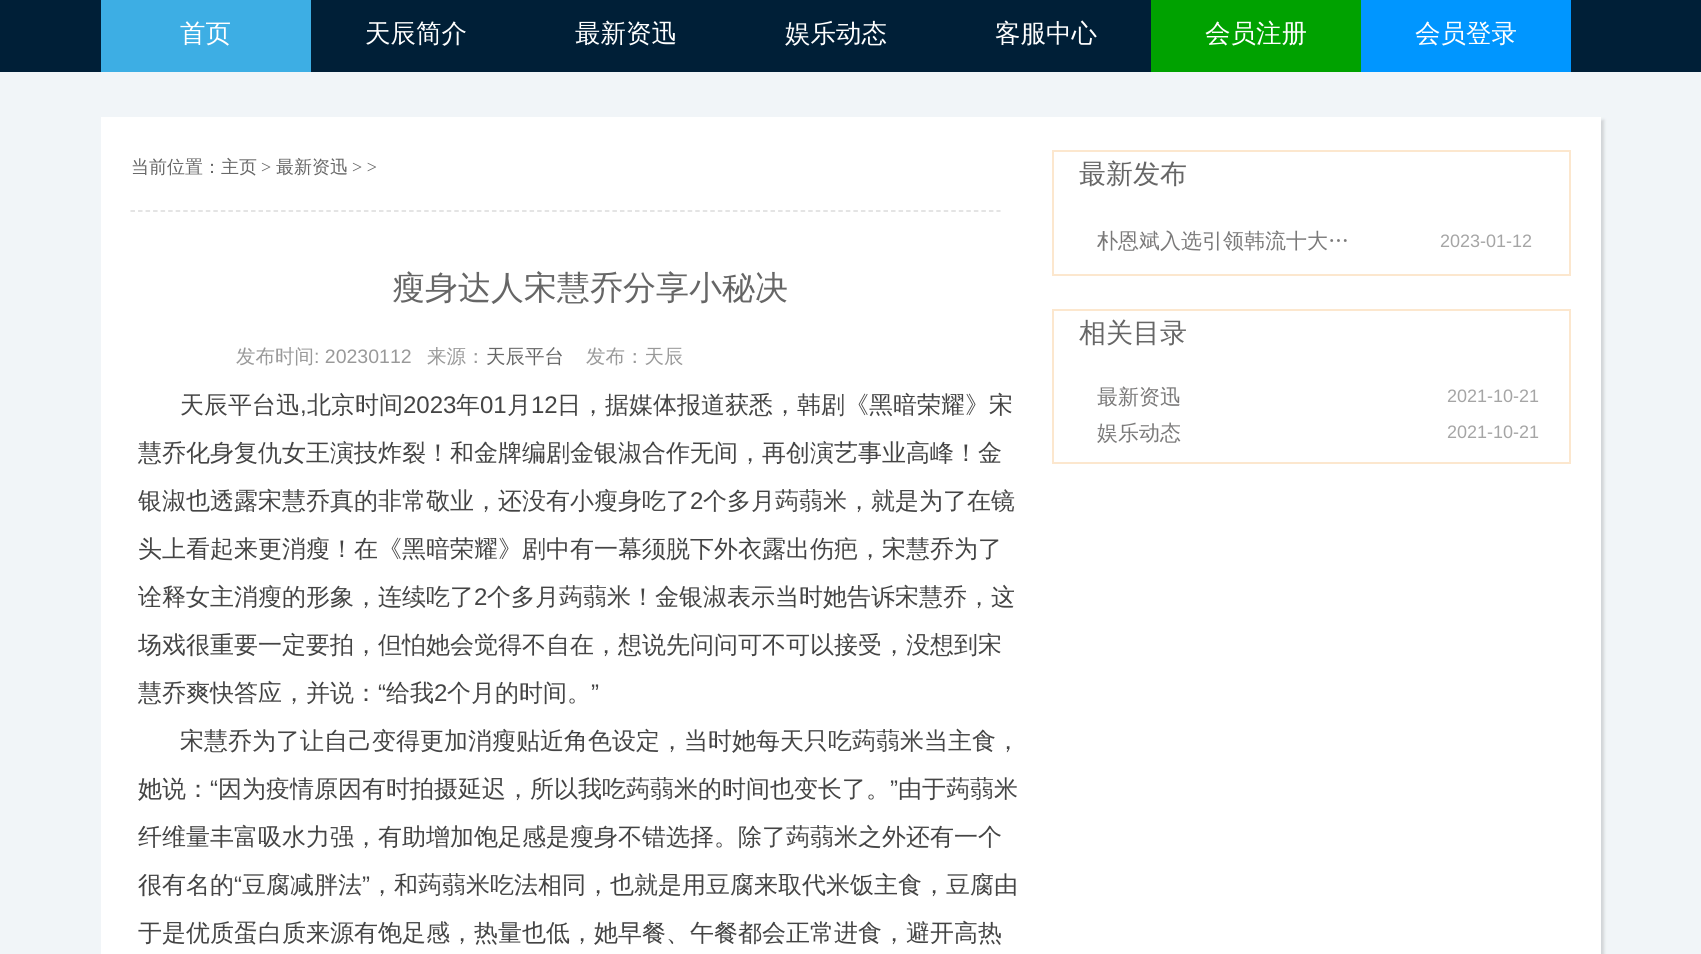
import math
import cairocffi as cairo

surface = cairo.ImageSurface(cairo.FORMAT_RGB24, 1701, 954)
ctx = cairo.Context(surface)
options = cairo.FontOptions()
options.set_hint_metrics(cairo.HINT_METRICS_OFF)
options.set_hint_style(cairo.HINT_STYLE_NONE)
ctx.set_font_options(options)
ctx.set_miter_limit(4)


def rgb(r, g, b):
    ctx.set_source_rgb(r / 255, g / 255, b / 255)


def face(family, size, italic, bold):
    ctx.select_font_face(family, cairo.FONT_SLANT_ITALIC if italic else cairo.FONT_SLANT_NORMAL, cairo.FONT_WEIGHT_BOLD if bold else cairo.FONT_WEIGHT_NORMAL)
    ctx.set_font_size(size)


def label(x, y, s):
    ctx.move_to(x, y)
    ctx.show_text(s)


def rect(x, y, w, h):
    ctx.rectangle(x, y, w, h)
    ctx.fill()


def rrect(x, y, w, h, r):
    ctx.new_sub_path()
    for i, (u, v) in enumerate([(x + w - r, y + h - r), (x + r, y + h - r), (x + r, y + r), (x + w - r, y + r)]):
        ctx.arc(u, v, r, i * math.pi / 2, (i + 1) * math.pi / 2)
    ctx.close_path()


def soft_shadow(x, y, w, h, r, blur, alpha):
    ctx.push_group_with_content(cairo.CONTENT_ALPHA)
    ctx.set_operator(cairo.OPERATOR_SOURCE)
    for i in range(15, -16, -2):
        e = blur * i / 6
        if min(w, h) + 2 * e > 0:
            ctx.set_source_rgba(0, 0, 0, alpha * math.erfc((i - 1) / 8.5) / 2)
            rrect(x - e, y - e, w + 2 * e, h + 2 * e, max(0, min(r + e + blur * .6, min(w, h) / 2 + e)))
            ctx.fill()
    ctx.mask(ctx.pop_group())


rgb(241, 245, 248)
ctx.paint()
rgb(0, 31, 55)
rect(0, 0, 1701, 72)
rgb(61, 174, 228)
rect(101, 0, 210, 72)
face('WenQuanYi Zen Hei Medium', 25.5, 0, 0)
rgb(255, 255, 255)
label(180, 42, '首页')
label(365, 42, '天辰简介')
label(575, 42, '最新资迅')
label(785, 42, '娱乐动态')
label(995, 42, '客服中心')
rgb(0, 162, 0)
rect(1151, 0, 210, 72)
rgb(255, 255, 255)
label(1205, 42, '会员注册')
rgb(0, 150, 255)
rect(1361, 0, 210, 72)
rgb(255, 255, 255)
label(1415, 42, '会员登录')
rgb(209, 212, 215)
soft_shadow(104, 120, 1500, 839, 0, 1.5, 1)
rgb(255, 255, 255)
rect(101, 117, 1500, 837)
ctx.new_path()
ctx.move_to(130.5, 211)
ctx.line_to(1000.5, 211)
rgb(219, 219, 219)
ctx.set_line_width(1.5)
ctx.set_dash([4.5, 3.03])
ctx.stroke()
face('WenQuanYi Zen Hei Medium', 18, 0, 0)
rgb(102, 102, 102)
label(131, 173, '当前位置：主页')
face('Liberation Serif', 18, 0, 0)
label(261, 173, '>')
face('WenQuanYi Zen Hei Medium', 18, 0, 0)
label(276, 173, '最新资迅')
face('Liberation Serif', 18, 0, 0)
label(352, 173, '> >')
face('WenQuanYi Zen Hei Medium', 33, 0, 0)
label(392, 299, '瘦身达人宋慧乔分享小秘决')
face('WenQuanYi Zen Hei Medium', 19.5, 0, 0)
rgb(153, 153, 153)
label(236, 363, '发布时间')
face('Liberation Sans', 19.5, 0, 0)
label(314, 363, ': 20230112')
face('WenQuanYi Zen Hei Medium', 19.5, 0, 0)
label(427, 363, '来源：')
rgb(102, 102, 102)
label(486, 363, '天辰平台')
rgb(153, 153, 153)
label(586, 363, '发布：天辰')
face('WenQuanYi Zen Hei Medium', 24, 0, 0)
rgb(68, 68, 68)
label(180, 413, '天辰平台迅')
face('Liberation Sans', 24, 0, 0)
label(300, 413, ',')
face('WenQuanYi Zen Hei Medium', 24, 0, 0)
label(307, 413, '北京时间')
face('Liberation Sans', 24, 0, 0)
label(403, 413, '2023')
face('WenQuanYi Zen Hei Medium', 24, 0, 0)
label(456, 413, '年')
face('Liberation Sans', 24, 0, 0)
label(480, 413, '01')
face('WenQuanYi Zen Hei Medium', 24, 0, 0)
label(507, 413, '月')
face('Liberation Sans', 24, 0, 0)
label(531, 413, '12')
face('WenQuanYi Zen Hei Medium', 24, 0, 0)
label(557, 413, '日，据媒体报道获悉，韩剧《黑暗荣耀》宋')
label(138, 461, '慧乔化身复仇女王演技炸裂！和金牌编剧金银淑合作无间，再创演艺事业高峰！金')
label(138, 509, '银淑也透露宋慧乔真的非常敬业，还没有小瘦身吃了')
face('Liberation Sans', 24, 0, 0)
label(690, 509, '2')
face('WenQuanYi Zen Hei Medium', 24, 0, 0)
label(703, 509, '个多月蒟蒻米，就是为了在镜')
label(138, 557, '头上看起来更消瘦！在《黑暗荣耀》剧中有一幕须脱下外衣露出伤疤，宋慧乔为了')
label(138, 605, '诠释女主消瘦的形象，连续吃了')
face('Liberation Sans', 24, 0, 0)
label(474, 605, '2')
face('WenQuanYi Zen Hei Medium', 24, 0, 0)
label(487, 605, '个多月蒟蒻米！金银淑表示当时她告诉宋慧乔，这')
label(138, 653, '场戏很重要一定要拍，但怕她会觉得不自在，想说先问问可不可以接受，没想到宋')
label(138, 701, '慧乔爽快答应，并说：')
face('Liberation Sans', 24, 0, 0)
label(378, 701, '“')
face('WenQuanYi Zen Hei Medium', 24, 0, 0)
label(386, 701, '给我')
face('Liberation Sans', 24, 0, 0)
label(434, 701, '2')
face('WenQuanYi Zen Hei Medium', 24, 0, 0)
label(447, 701, '个月的时间。')
face('Liberation Sans', 24, 0, 0)
label(591, 701, '”')
face('WenQuanYi Zen Hei Medium', 24, 0, 0)
label(180, 749, '宋慧乔为了让自己变得更加消瘦贴近角色设定，当时她每天只吃蒟蒻米当主食，')
label(138, 797, '她说：')
face('Liberation Sans', 24, 0, 0)
label(210, 797, '“')
face('WenQuanYi Zen Hei Medium', 24, 0, 0)
label(218, 797, '因为疫情原因有时拍摄延迟，所以我吃蒟蒻米的时间也变长了。')
face('Liberation Sans', 24, 0, 0)
label(890, 797, '”')
face('WenQuanYi Zen Hei Medium', 24, 0, 0)
label(898, 797, '由于蒟蒻米')
label(138, 845, '纤维量丰富吸水力强，有助增加饱足感是瘦身不错选择。除了蒟蒻米之外还有一个')
label(138, 893, '很有名的')
face('Liberation Sans', 24, 0, 0)
label(234, 893, '“')
face('WenQuanYi Zen Hei Medium', 24, 0, 0)
label(242, 893, '豆腐减胖法')
face('Liberation Sans', 24, 0, 0)
label(362, 893, '”')
face('WenQuanYi Zen Hei Medium', 24, 0, 0)
label(370, 893, '，和蒟蒻米吃法相同，也就是用豆腐来取代米饭主食，豆腐由')
label(138, 941, '于是优质蛋白质来源有饱足感，热量也低，她早餐、午餐都会正常进食，避开高热')
ctx.rectangle(1053, 151, 517, 124)
rgb(252, 231, 206)
ctx.set_line_width(2)
ctx.set_dash([])
ctx.stroke()
face('WenQuanYi Zen Hei Medium', 27, 0, 0)
rgb(102, 102, 102)
label(1079, 183, '最新发布')
face('WenQuanYi Zen Hei Medium', 21, 0, 0)
rgb(122, 121, 121)
label(1097, 248, '朴恩斌入选引领韩流十大…')
face('Liberation Sans', 18, 0, 0)
rgb(165, 165, 165)
label(1440, 247, '2023-01-12')
ctx.rectangle(1053, 310, 517, 153)
rgb(252, 231, 206)
ctx.stroke()
face('WenQuanYi Zen Hei Medium', 27, 0, 0)
rgb(102, 102, 102)
label(1079, 342, '相关目录')
face('WenQuanYi Zen Hei Medium', 21, 0, 0)
rgb(122, 121, 121)
label(1097, 404, '最新资迅')
face('Liberation Sans', 18, 0, 0)
rgb(165, 165, 165)
label(1447, 402, '2021-10-21')
face('WenQuanYi Zen Hei Medium', 21, 0, 0)
rgb(122, 121, 121)
label(1097, 440, '娱乐动态')
face('Liberation Sans', 18, 0, 0)
rgb(165, 165, 165)
label(1447, 438, '2021-10-21')
surface.write_to_png('render.png')
